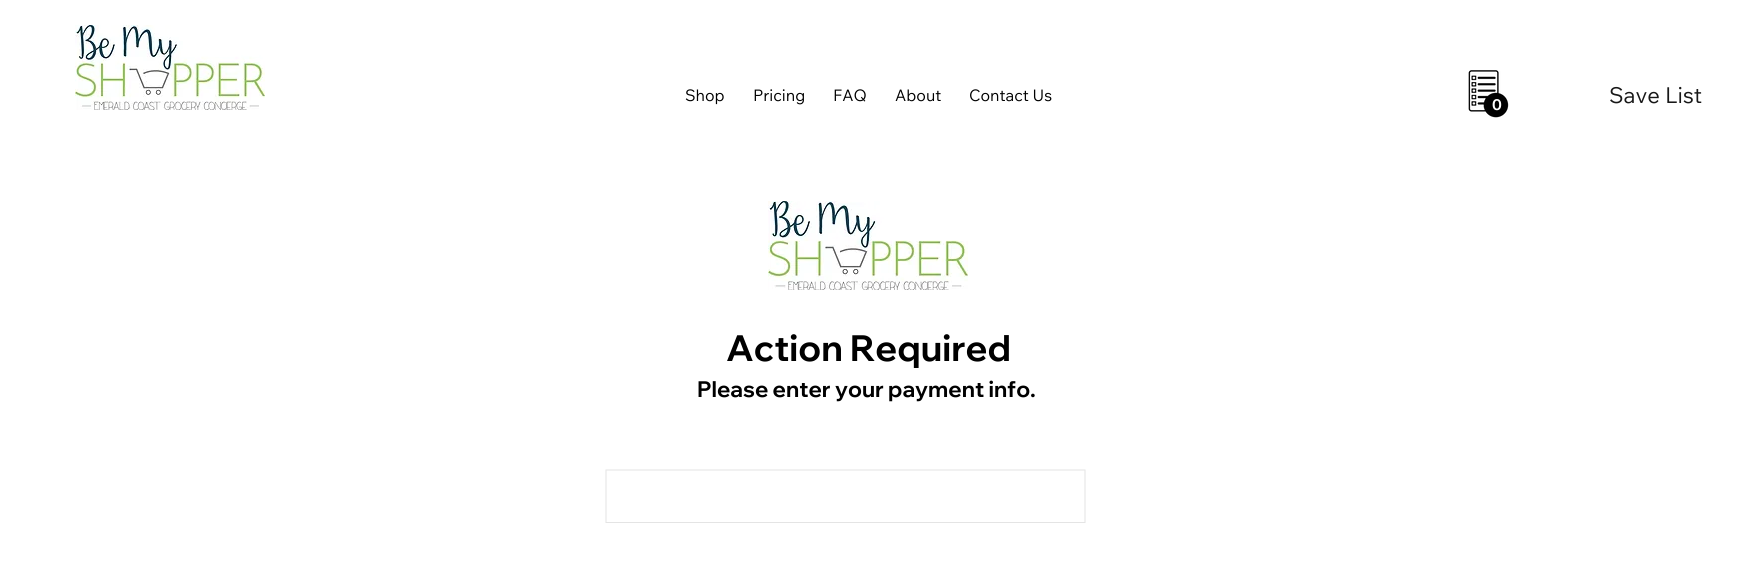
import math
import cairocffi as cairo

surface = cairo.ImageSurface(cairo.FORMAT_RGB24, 1737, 567)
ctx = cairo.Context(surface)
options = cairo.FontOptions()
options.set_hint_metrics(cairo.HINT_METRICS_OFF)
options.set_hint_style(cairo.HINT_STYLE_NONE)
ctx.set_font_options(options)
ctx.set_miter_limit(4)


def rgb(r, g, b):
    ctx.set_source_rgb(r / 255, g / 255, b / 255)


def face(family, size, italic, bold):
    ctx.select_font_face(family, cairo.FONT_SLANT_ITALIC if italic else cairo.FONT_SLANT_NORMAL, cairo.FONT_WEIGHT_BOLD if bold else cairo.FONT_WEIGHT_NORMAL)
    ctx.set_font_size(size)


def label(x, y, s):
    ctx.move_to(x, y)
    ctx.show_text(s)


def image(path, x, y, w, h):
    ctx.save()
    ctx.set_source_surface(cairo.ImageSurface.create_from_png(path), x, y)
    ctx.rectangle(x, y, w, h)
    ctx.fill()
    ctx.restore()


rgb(255, 255, 255)
ctx.paint()
image('image0.png', 75, 25, 190, 85)
face('Wix Madefor Text', 16, 0, 0)
rgb(0, 0, 0)
label(685, 101, 'Shop')
label(753, 101, 'Pricing')
label(833, 101, 'FAQ')
label(895, 101, 'About')
label(969, 101, 'Contact Us')
image('image1.png', 1468, 70, 41, 48)
face('Wix Madefor Display', 15, 0, 1)
rgb(255, 255, 255)
label(1492, 110, '0')
face('Wix Madefor Text', 22, 0, 0)
rgb(24, 24, 24)
label(1609, 103, 'Save List')
image('image2.png', 768, 201, 200, 89)
face('Wix Madefor Display', 36, 0, 1)
rgb(0, 0, 0)
label(726, 361, 'Action Required')
face('Wix Madefor Display', 22, 0, 1)
label(697, 397, 'Please enter your payment info.')
ctx.new_path()
ctx.move_to(1085, 470)
ctx.line_to(1085, 522.5)
ctx.line_to(606, 522.5)
ctx.line_to(606, 470)
ctx.close_path()
rgb(228, 228, 228)
ctx.set_line_width(1)
ctx.stroke()
surface.write_to_png('render.png')
